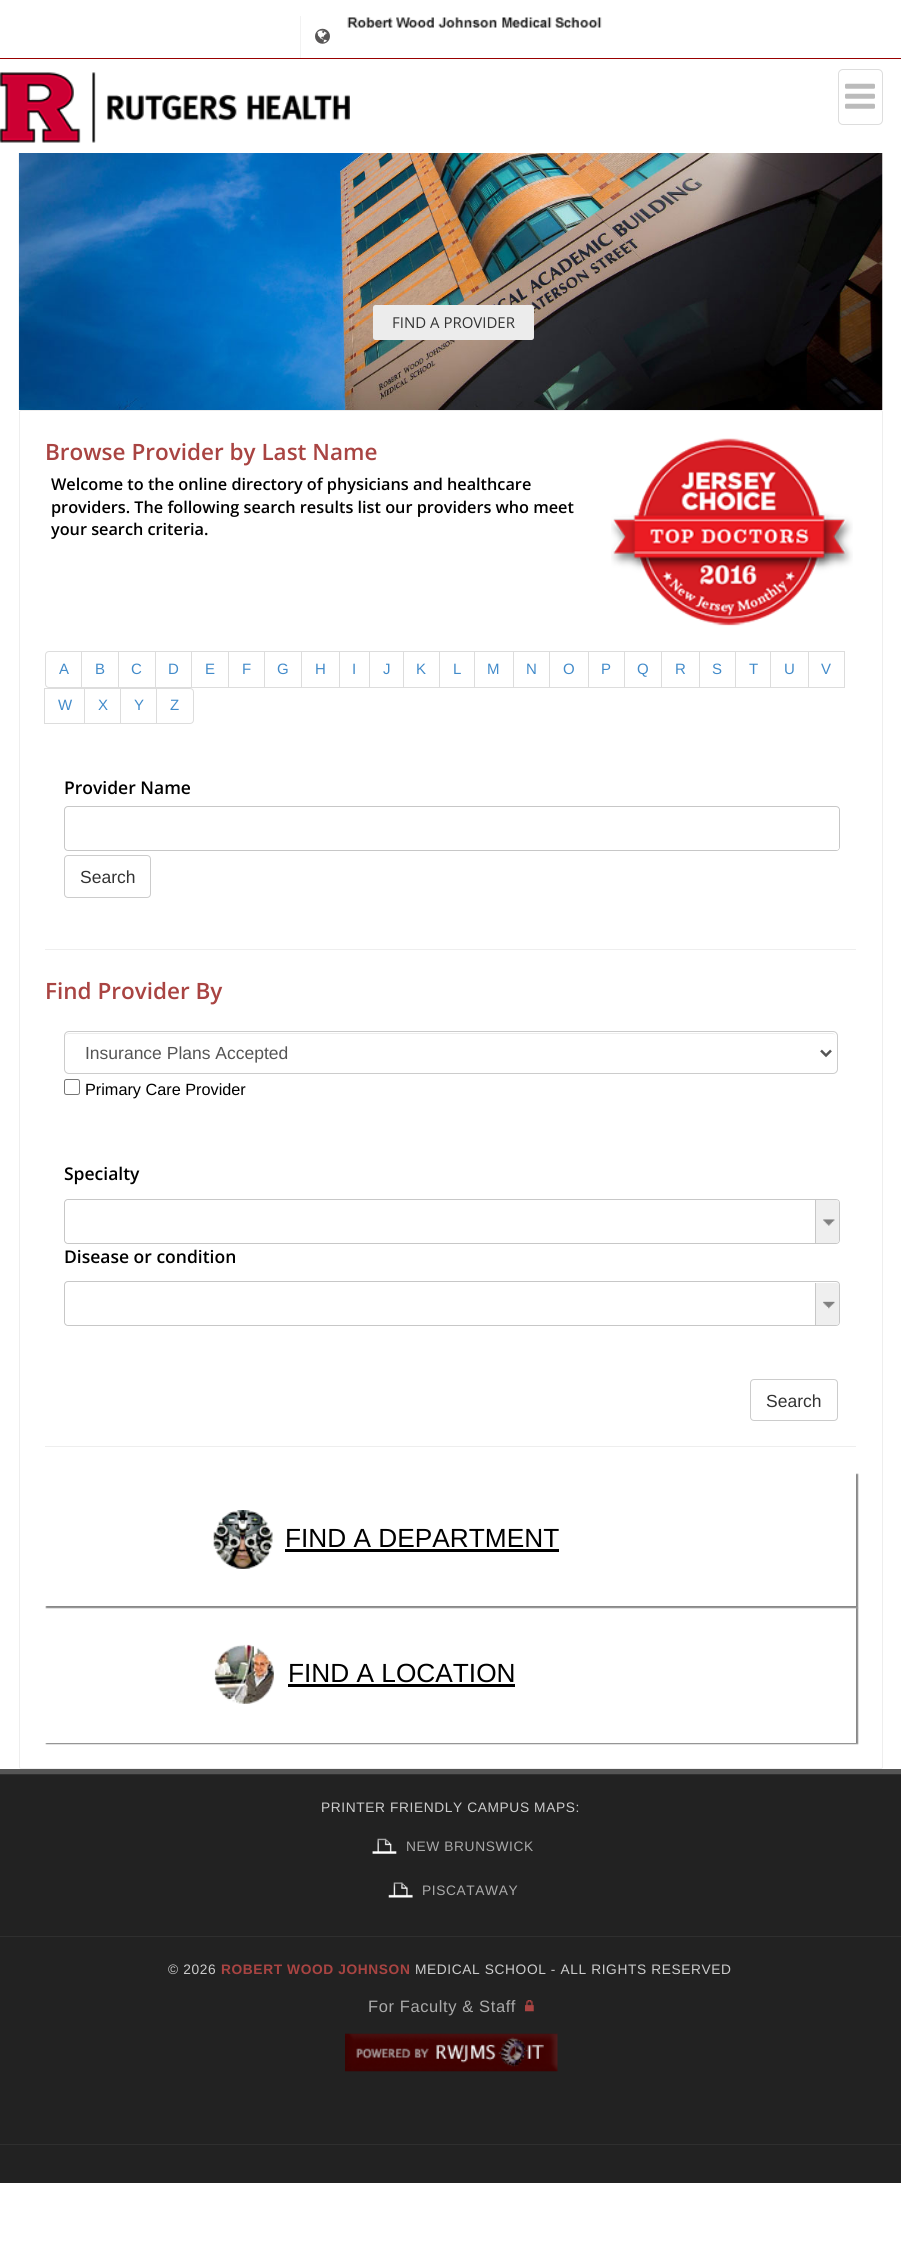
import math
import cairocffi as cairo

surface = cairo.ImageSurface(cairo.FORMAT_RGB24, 901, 2243)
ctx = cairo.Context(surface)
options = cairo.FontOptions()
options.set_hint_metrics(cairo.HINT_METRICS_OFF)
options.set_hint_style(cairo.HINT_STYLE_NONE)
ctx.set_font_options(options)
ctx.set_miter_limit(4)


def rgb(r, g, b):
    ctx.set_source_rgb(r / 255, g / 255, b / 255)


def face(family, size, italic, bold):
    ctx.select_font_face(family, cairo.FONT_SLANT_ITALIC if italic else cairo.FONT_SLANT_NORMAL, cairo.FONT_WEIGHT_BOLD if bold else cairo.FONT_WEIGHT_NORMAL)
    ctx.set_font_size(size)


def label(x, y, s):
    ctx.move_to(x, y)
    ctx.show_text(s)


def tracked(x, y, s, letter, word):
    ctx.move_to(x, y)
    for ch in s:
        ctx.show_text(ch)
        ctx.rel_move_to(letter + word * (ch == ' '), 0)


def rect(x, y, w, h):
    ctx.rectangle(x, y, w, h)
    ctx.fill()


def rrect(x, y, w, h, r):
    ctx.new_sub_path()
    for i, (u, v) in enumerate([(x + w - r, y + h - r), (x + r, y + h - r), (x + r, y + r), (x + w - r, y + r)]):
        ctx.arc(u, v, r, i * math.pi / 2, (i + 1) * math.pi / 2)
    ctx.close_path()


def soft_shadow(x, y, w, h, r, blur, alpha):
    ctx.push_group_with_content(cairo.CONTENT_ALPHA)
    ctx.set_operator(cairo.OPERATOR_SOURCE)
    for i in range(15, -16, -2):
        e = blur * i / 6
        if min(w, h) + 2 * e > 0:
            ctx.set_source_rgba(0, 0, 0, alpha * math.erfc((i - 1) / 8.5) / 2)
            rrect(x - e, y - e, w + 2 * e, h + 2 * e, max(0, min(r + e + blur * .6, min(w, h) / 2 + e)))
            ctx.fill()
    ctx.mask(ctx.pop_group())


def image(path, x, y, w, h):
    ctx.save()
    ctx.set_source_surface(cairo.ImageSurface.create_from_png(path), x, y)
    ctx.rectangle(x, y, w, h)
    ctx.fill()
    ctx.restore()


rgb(255, 255, 255)
ctx.paint()
rgb(153, 0, 0)
rect(0, 58, 901, 1)
rgb(242, 242, 242)
rect(300, 16, 1, 42)
image('image0.png', 315, 28, 15, 16)
image('image1.png', 347, 17, 255, 11)
image('image2.png', 0, 72, 350, 71)
rrect(838.5, 69.5, 44, 55, 4.5)
rgb(221, 221, 221)
ctx.set_line_width(1)
ctx.stroke()
image('image3.png', 845, 83, 30, 26)
image('image4.png', 18, 153, 865, 257)
rgb(236, 236, 236)
rrect(373, 305, 161, 35, 2.5)
ctx.fill()
face('Open Sans', 15, 0, 0)
rgb(51, 51, 51)
label(392, 328, 'FIND A PROVIDER')
rrect(19.5, 410.5, 863, 1358, 1.5)
rgb(238, 238, 238)
ctx.stroke()
face('Open Sans SemiBold', 22.5, 0, 0)
rgb(169, 68, 66)
label(45, 460, 'Browse Provider by Last Name')
image('image5.png', 611, 438, 242, 188)
face('Open Sans SemiBold', 16.25, 0, 0)
rgb(0, 0, 0)
label(51, 490, 'Welcome to the online directory of physicians and healthcare')
label(51, 513, 'providers. The following search results list our providers who meet')
label(51, 535, 'your search criteria.')
ctx.new_path()
ctx.move_to(49, 651.5)
ctx.line_to(82.5, 651.5)
ctx.line_to(82.5, 687.5)
ctx.line_to(49, 687.5)
ctx.curve_to(47, 687.5, 45.5, 686, 45.5, 684)
ctx.line_to(45.5, 655)
ctx.curve_to(45.5, 653, 47, 651.5, 49, 651.5)
ctx.close_path()
rgb(221, 221, 221)
ctx.stroke()
face('Liberation Sans', 15, 0, 0)
rgb(66, 139, 202)
label(59, 674, 'A')
rgb(255, 255, 255)
rect(82, 652, 1, 35)
ctx.rectangle(81.5, 651.5, 37, 36)
rgb(221, 221, 221)
ctx.stroke()
rgb(66, 139, 202)
label(95, 674, 'B')
ctx.rectangle(118.5, 651.5, 37, 36)
rgb(221, 221, 221)
ctx.stroke()
rgb(66, 139, 202)
label(131, 674, 'C')
ctx.rectangle(155.5, 651.5, 37, 36)
rgb(221, 221, 221)
ctx.stroke()
rgb(66, 139, 202)
label(168, 674, 'D')
rgb(255, 255, 255)
rect(192, 652, 1, 35)
ctx.rectangle(191.5, 651.5, 37, 36)
rgb(221, 221, 221)
ctx.stroke()
rgb(66, 139, 202)
label(205, 674, 'E')
ctx.rectangle(228.5, 651.5, 36, 36)
rgb(221, 221, 221)
ctx.stroke()
rgb(66, 139, 202)
label(242, 674, 'F')
ctx.rectangle(264.5, 651.5, 38, 36)
rgb(221, 221, 221)
ctx.stroke()
rgb(66, 139, 202)
label(277, 674, 'G')
rgb(255, 255, 255)
rect(302, 652, 1, 35)
ctx.rectangle(301.5, 651.5, 38, 36)
rgb(221, 221, 221)
ctx.stroke()
rgb(66, 139, 202)
label(315, 674, 'H')
ctx.rectangle(339.5, 651.5, 30, 36)
rgb(221, 221, 221)
ctx.stroke()
rgb(66, 139, 202)
label(352, 674, 'I')
ctx.rectangle(369.5, 651.5, 34, 36)
rgb(221, 221, 221)
ctx.stroke()
rgb(66, 139, 202)
label(383, 674, 'J')
ctx.rectangle(403.5, 651.5, 36, 36)
rgb(221, 221, 221)
ctx.stroke()
rgb(66, 139, 202)
label(416, 674, 'K')
ctx.rectangle(439.5, 651.5, 35, 36)
rgb(221, 221, 221)
ctx.stroke()
rgb(66, 139, 202)
label(453, 674, 'L')
ctx.rectangle(474.5, 651.5, 39, 36)
rgb(221, 221, 221)
ctx.stroke()
rgb(66, 139, 202)
label(487, 674, 'M')
ctx.rectangle(513.5, 651.5, 36, 36)
rgb(221, 221, 221)
ctx.stroke()
rgb(66, 139, 202)
label(526, 674, 'N')
ctx.rectangle(549.5, 651.5, 39, 36)
rgb(221, 221, 221)
ctx.stroke()
rgb(66, 139, 202)
label(563, 674, 'O')
ctx.rectangle(588.5, 651.5, 36, 36)
rgb(221, 221, 221)
ctx.stroke()
rgb(66, 139, 202)
label(601, 674, 'P')
ctx.rectangle(624.5, 651.5, 38, 36)
rgb(221, 221, 221)
ctx.stroke()
rgb(66, 139, 202)
label(637, 674, 'Q')
rgb(255, 255, 255)
rect(662, 652, 1, 35)
ctx.rectangle(661.5, 651.5, 38, 36)
rgb(221, 221, 221)
ctx.stroke()
rgb(66, 139, 202)
label(675, 674, 'R')
ctx.rectangle(699.5, 651.5, 36, 36)
rgb(221, 221, 221)
ctx.stroke()
rgb(66, 139, 202)
label(712, 674, 'S')
ctx.rectangle(735.5, 651.5, 35, 36)
rgb(221, 221, 221)
ctx.stroke()
rgb(66, 139, 202)
label(749, 674, 'T')
ctx.rectangle(770.5, 651.5, 38, 36)
rgb(221, 221, 221)
ctx.stroke()
rgb(66, 139, 202)
label(784, 674, 'U')
ctx.rectangle(808.5, 651.5, 36, 36)
rgb(221, 221, 221)
ctx.stroke()
rgb(66, 139, 202)
label(821, 674, 'V')
ctx.rectangle(44.5, 688.5, 40, 35)
rgb(221, 221, 221)
ctx.stroke()
rgb(66, 139, 202)
label(58, 710, 'W')
ctx.rectangle(84.5, 688.5, 36, 35)
rgb(221, 221, 221)
ctx.stroke()
rgb(66, 139, 202)
label(98, 710, 'X')
ctx.rectangle(120.5, 688.5, 37, 35)
rgb(221, 221, 221)
ctx.stroke()
rgb(66, 139, 202)
label(134, 710, 'Y')
rgb(255, 255, 255)
ctx.new_path()
ctx.move_to(156.5, 688.5)
ctx.line_to(190, 688.5)
ctx.curve_to(192, 688.5, 193.5, 690, 193.5, 692)
ctx.line_to(193.5, 720)
ctx.curve_to(193.5, 722, 192, 723.5, 190, 723.5)
ctx.line_to(156.5, 723.5)
ctx.close_path()
ctx.fill_preserve()
rgb(221, 221, 221)
ctx.stroke()
rgb(66, 139, 202)
label(170, 710, 'Z')
face('Open Sans SemiBold', 17.5, 0, 0)
rgb(0, 0, 0)
label(64, 794, 'Provider Name')
rrect(64.5, 806.5, 775, 44, 3.5)
rgb(199, 199, 199)
ctx.stroke()
rgb(255, 255, 255)
ctx.new_path()
ctx.move_to(69, 808)
ctx.line_to(836.5, 808)
ctx.curve_to(838, 808, 839, 809, 839, 810.5)
ctx.line_to(839, 847.5)
ctx.curve_to(839, 849, 838, 850, 836.5, 850)
ctx.line_to(69, 850)
ctx.curve_to(67, 850, 65, 848, 65, 846)
ctx.line_to(65, 812)
ctx.curve_to(65, 810, 67, 808, 69, 808)
ctx.close_path()
ctx.fill()
rrect(64.5, 855.5, 86, 42, 3.5)
rgb(204, 204, 204)
ctx.stroke()
face('Liberation Sans', 17.5, 0, 0)
rgb(51, 51, 51)
label(80, 883, 'Search')
rgb(238, 238, 238)
rect(45, 949, 811, 1)
face('Open Sans SemiBold', 22.5, 0, 0)
rgb(169, 68, 66)
label(45, 999, 'Find Provider By')
rgb(236, 236, 236)
ctx.new_path()
ctx.move_to(69, 1034)
ctx.line_to(832, 1034)
ctx.curve_to(835, 1034, 836, 1035, 836, 1038)
ctx.line_to(836, 1037)
ctx.curve_to(836, 1035, 834, 1033, 832, 1033)
ctx.line_to(69, 1033)
ctx.curve_to(67, 1033, 65, 1035, 65, 1037)
ctx.line_to(65, 1038)
ctx.curve_to(65, 1035, 67, 1034, 69, 1034)
ctx.close_path()
ctx.fill()
rrect(64.5, 1031.5, 773, 42, 4.5)
rgb(204, 204, 204)
ctx.stroke()
ctx.new_path()
ctx.move_to(821, 1050.5)
ctx.line_to(826, 1055.5)
ctx.line_to(831, 1050.5)
rgb(85, 85, 85)
ctx.set_line_width(2.5)
ctx.stroke()
face('Liberation Sans', 17.5, 0, 0)
label(85, 1059, 'Insurance Plans Accepted')
rrect(64.5, 1079.5, 15, 15, 2)
rgb(118, 118, 118)
ctx.set_line_width(1)
ctx.stroke()
face('Liberation Sans', 16.25, 0, 0)
rgb(0, 0, 0)
label(85, 1095, 'Primary Care Provider')
face('Open Sans SemiBold', 17.5, 0, 0)
label(64, 1180, 'Specialty')
rrect(64.5, 1199.5, 775, 44, 3.5)
rgb(199, 199, 199)
ctx.stroke()
rgb(255, 255, 255)
ctx.new_path()
ctx.move_to(69, 1200)
ctx.line_to(816, 1200)
ctx.line_to(816, 1243)
ctx.line_to(69, 1243)
ctx.curve_to(67, 1243, 65, 1241, 65, 1239)
ctx.line_to(65, 1204)
ctx.curve_to(65, 1202, 67, 1200, 69, 1200)
ctx.close_path()
ctx.fill()
rgb(199, 199, 199)
rect(815, 1200, 1, 43)
ctx.save()
rrect(65, 1200, 774, 43, 2.5)
ctx.clip()
rgb(239, 239, 239)
ctx.new_path()
ctx.move_to(816, 1200)
ctx.line_to(836, 1200)
ctx.curve_to(838, 1200, 840, 1202, 840, 1204)
ctx.line_to(840, 1239)
ctx.curve_to(840, 1241, 838, 1243, 836, 1243)
ctx.line_to(816, 1243)
ctx.close_path()
ctx.fill()
ctx.restore()
image('image6.png', 823, 1219, 12, 7)
rgb(0, 0, 0)
label(64, 1263, 'Disease or condition')
rrect(64.5, 1281.5, 775, 44, 3.5)
rgb(199, 199, 199)
ctx.stroke()
rgb(255, 255, 255)
ctx.new_path()
ctx.move_to(69, 1283)
ctx.line_to(816, 1283)
ctx.line_to(816, 1325)
ctx.line_to(69, 1325)
ctx.curve_to(67, 1325, 65, 1323, 65, 1321)
ctx.line_to(65, 1287)
ctx.curve_to(65, 1285, 67, 1283, 69, 1283)
ctx.close_path()
ctx.fill()
rgb(199, 199, 199)
rect(815, 1283, 1, 42)
ctx.save()
rrect(65, 1283, 774, 42, 2.5)
ctx.clip()
rgb(239, 239, 239)
ctx.new_path()
ctx.move_to(816, 1283)
ctx.line_to(836, 1283)
ctx.curve_to(838, 1283, 840, 1285, 840, 1287)
ctx.line_to(840, 1321)
ctx.curve_to(840, 1323, 838, 1325, 836, 1325)
ctx.line_to(816, 1325)
ctx.close_path()
ctx.fill()
ctx.restore()
image('image7.png', 823, 1301, 12, 8)
rrect(750.5, 1379.5, 87, 41, 3.5)
rgb(204, 204, 204)
ctx.stroke()
face('Liberation Sans', 17.5, 0, 0)
rgb(51, 51, 51)
label(766, 1407, 'Search')
rgb(238, 238, 238)
rect(45, 1446, 811, 1)
ctx.save()
ctx.set_fill_rule(cairo.FILL_RULE_EVEN_ODD)
ctx.new_path()
ctx.move_to(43, 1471)
ctx.line_to(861, 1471)
ctx.line_to(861, 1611)
ctx.line_to(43, 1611)
ctx.close_path()
ctx.move_to(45, 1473)
ctx.line_to(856, 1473)
ctx.line_to(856, 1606)
ctx.line_to(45, 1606)
ctx.close_path()
ctx.clip()
rgb(136, 136, 136)
soft_shadow(46, 1474, 812, 134, 0, 0.5, 1)
ctx.restore()
image('image8.png', 213, 1510, 60, 59)
face('Liberation Sans', 26.25, 0, 0)
rgb(0, 0, 0)
label(285, 1547, 'FIND A DEPARTMENT')
rect(285, 1549, 274, 3)
ctx.save()
ctx.set_fill_rule(cairo.FILL_RULE_EVEN_ODD)
ctx.new_path()
ctx.move_to(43, 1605)
ctx.line_to(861, 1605)
ctx.line_to(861, 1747)
ctx.line_to(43, 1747)
ctx.close_path()
ctx.move_to(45, 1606)
ctx.line_to(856, 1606)
ctx.line_to(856, 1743)
ctx.line_to(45, 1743)
ctx.close_path()
ctx.clip()
rgb(136, 136, 136)
soft_shadow(46, 1608, 812, 136, 0, 0.5, 1)
ctx.restore()
image('image9.png', 214, 1644, 60, 60)
label(288, 1682, 'FIND A LOCATION')
rect(288, 1684, 227, 3)
rgb(34, 34, 34)
rect(0, 1775, 901, 408)
rgb(85, 85, 85)
rect(0, 1769, 901, 5)
rgb(47, 47, 47)
rect(0, 1774, 901, 1)
face('Liberation Sans', 13.75, 0, 0)
rgb(204, 204, 204)
tracked(321, 1812, 'PRINTER FRIENDLY CAMPUS MAPS:', 0.6, 0)
image('image10.png', 372, 1838, 25, 16)
rgb(170, 170, 170)
tracked(406, 1851, 'NEW BRUNSWICK', 0.6, 0)
image('image11.png', 388, 1882, 25, 16)
tracked(422, 1895, 'PISCATAWAY', 0.6, 0)
rgb(47, 47, 47)
rect(0, 1936, 901, 1)
rgb(204, 204, 204)
tracked(168, 1974, '© 2026', 0.6, 0)
face('Liberation Sans', 13.75, 0, 1)
rgb(169, 68, 66)
tracked(221, 1974, 'ROBERT WOOD JOHNSON', 0.6, 0)
face('Liberation Sans', 13.75, 0, 0)
rgb(204, 204, 204)
tracked(415, 1974, 'MEDICAL SCHOOL - ALL RIGHTS RESERVED', 0.6, 0)
face('Liberation Sans', 16.5, 0, 0)
rgb(170, 170, 170)
tracked(368, 2012, 'For Faculty & Staff', 0.6, 0)
image('image12.png', 525, 2000, 9, 12)
image('image13.png', 345, 2033, 213, 39)
rgb(47, 47, 47)
rect(0, 2144, 901, 1)
surface.write_to_png('render.png')
